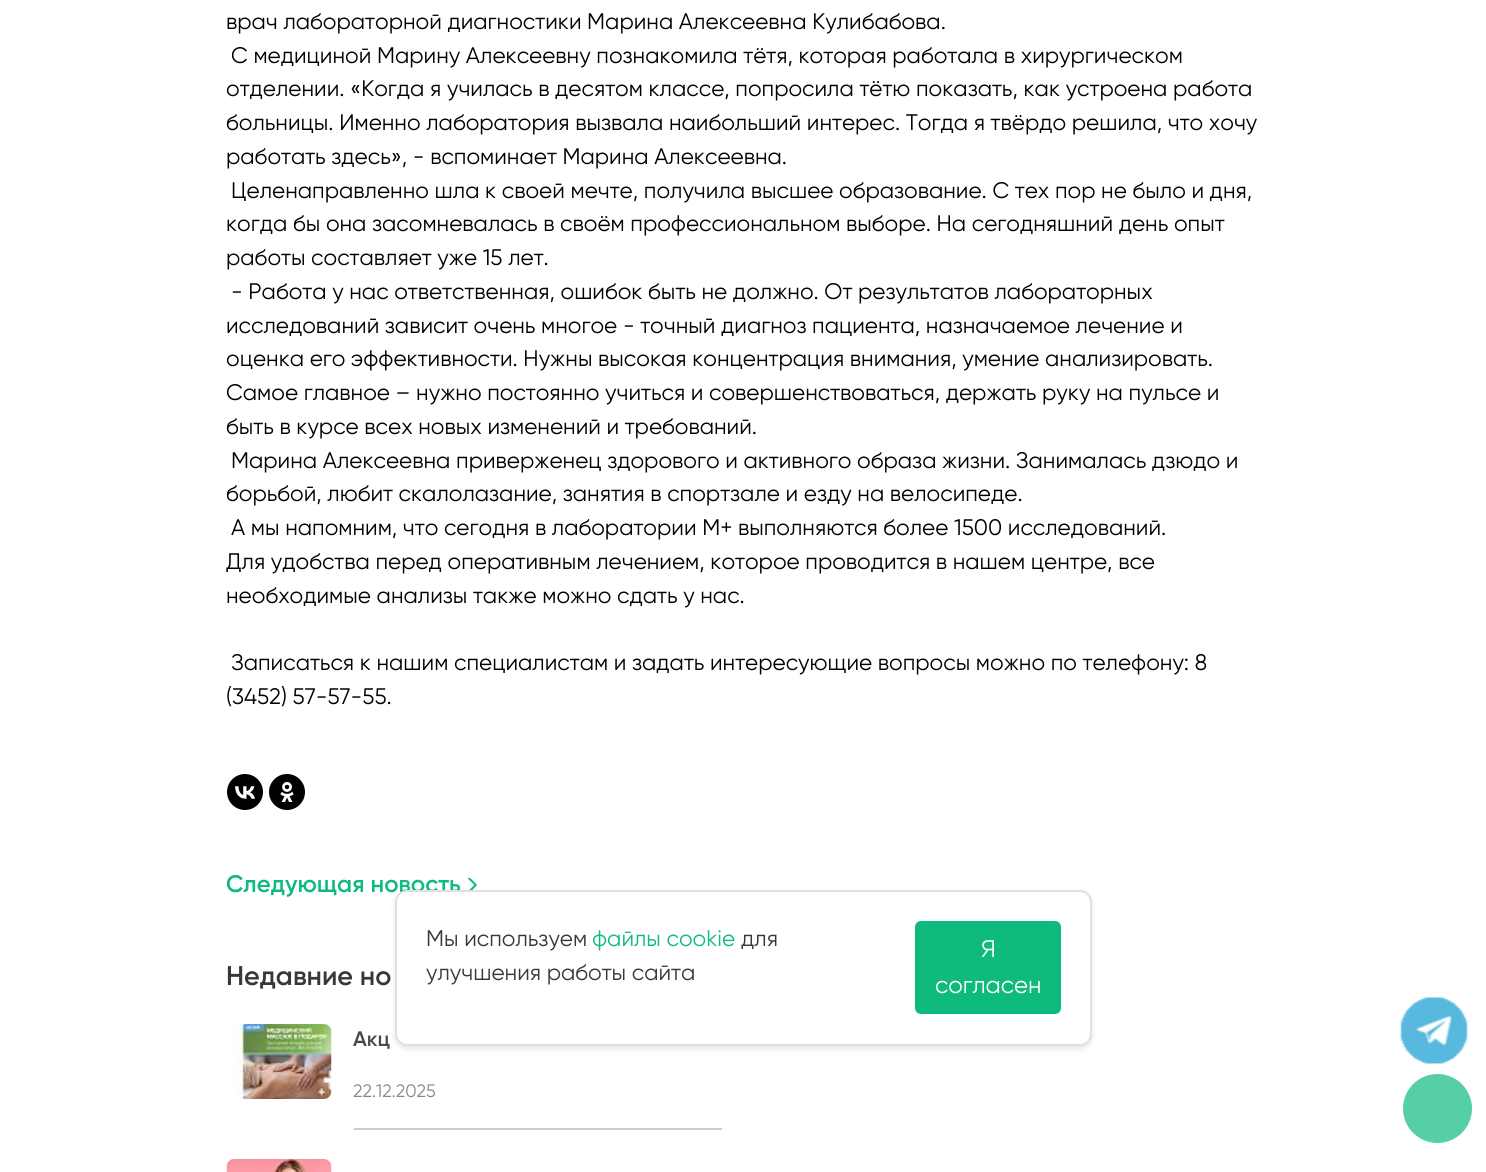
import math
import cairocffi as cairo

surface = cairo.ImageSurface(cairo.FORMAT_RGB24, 1486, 1172)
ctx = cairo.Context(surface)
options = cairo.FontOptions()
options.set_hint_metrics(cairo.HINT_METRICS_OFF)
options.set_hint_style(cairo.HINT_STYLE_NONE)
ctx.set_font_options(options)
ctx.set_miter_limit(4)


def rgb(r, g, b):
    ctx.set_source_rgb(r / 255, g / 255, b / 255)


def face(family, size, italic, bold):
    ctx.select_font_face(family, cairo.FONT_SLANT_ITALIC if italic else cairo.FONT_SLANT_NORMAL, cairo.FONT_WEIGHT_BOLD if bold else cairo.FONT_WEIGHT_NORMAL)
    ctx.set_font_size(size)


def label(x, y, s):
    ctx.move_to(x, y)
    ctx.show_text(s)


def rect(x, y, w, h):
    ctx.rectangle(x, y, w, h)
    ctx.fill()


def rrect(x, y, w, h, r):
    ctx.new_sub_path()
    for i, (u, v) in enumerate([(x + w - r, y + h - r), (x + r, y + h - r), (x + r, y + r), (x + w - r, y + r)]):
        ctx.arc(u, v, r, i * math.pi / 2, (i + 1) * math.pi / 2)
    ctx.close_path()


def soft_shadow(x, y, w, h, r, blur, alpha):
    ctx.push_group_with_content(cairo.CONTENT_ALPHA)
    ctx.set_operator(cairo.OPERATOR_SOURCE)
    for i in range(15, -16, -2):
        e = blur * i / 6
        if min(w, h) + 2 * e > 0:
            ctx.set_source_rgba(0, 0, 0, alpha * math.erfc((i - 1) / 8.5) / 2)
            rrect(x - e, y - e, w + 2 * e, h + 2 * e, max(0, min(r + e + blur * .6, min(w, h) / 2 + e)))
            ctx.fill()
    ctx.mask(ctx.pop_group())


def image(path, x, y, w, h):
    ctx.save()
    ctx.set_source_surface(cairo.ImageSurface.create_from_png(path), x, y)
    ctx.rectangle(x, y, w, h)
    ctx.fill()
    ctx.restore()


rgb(255, 255, 255)
ctx.paint()
face('Gilroy', 22.5, 0, 0)
rgb(0, 0, 0)
label(226, 29, 'врач лабораторной диагностики Марина Алексеевна Кулибабова.')
label(231, 63, 'С медициной Марину Алексеевну познакомила тётя, которая работала в хирургическом')
label(226, 96, 'отделении. «Когда я училась в десятом классе, попросила тётю показать, как устроена работа')
label(226, 130, 'больницы. Именно лаборатория вызвала наибольший интерес. Тогда я твёрдо решила, что хочу')
label(226, 164, 'работать здесь», - вспоминает Марина Алексеевна.')
label(231, 198, 'Целенаправленно шла к своей мечте, получила высшее образование. С тех пор не было и дня,')
label(226, 231, 'когда бы она засомневалась в своём профессиональном выборе. На сегодняшний день опыт')
label(226, 265, 'работы составляет уже 15 лет.')
label(231, 299, '- Работа у нас ответственная, ошибок быть не должно. От результатов лабораторных')
label(226, 333, 'исследований зависит очень многое - точный диагноз пациента, назначаемое лечение и')
label(226, 366, 'оценка его эффективности. Нужны высокая концентрация внимания, умение анализировать.')
label(226, 400, 'Самое главное – нужно постоянно учиться и совершенствоваться, держать руку на пульсе и')
label(226, 434, 'быть в курсе всех новых изменений и требований.')
label(231, 468, 'Марина Алексеевна приверженец здорового и активного образа жизни. Занималась дзюдо и')
label(226, 501, 'борьбой, любит скалолазание, занятия в спортзале и езду на велосипеде.')
label(231, 535, 'А мы напомним, что сегодня в лаборатории М+ выполняются более 1500 исследований.')
label(226, 569, 'Для удобства перед оперативным лечением, которое проводится в нашем центре, все')
label(226, 603, 'необходимые анализы также можно сдать у нас.')
label(231, 670, 'Записаться к нашим специалистам и задать интересующие вопросы можно по телефону: 8')
label(226, 704, '(3452) 57-57-55.')
ctx.new_path()
ctx.arc(245, 792, 18, 0, 2 * math.pi)
ctx.fill()
image('image0.png', 235, 786, 20, 13)
ctx.arc(287, 792, 18, 0, 2 * math.pi)
ctx.fill()
image('image1.png', 280, 782, 14, 20)
face('Gilroy SemiBold', 24, 0, 0)
rgb(14, 187, 125)
label(226, 892, 'Следующая новость')
image('image2.png', 468, 878, 9, 12)
face('Gilroy SemiBold', 27, 0, 0)
rgb(56, 56, 56)
label(226, 985, 'Недавние но')
image('image3.png', 227, 1024, 105, 75)
face('Gilroy SemiBold', 21, 0, 0)
rgb(73, 73, 73)
label(353, 1046, 'Акц')
face('Gilroy', 18, 0, 0)
rgb(135, 135, 135)
label(353, 1097, '22.12.2025')
rgb(204, 204, 204)
rect(354, 1128, 368, 2)
image('image4.png', 226, 1159, 106, 13)
image('image5.png', 1400, 997, 68, 67)
rgb(86, 207, 164)
ctx.arc(1437.5, 1108.5, 34.5, 0, 2 * math.pi)
ctx.fill()
rgb(0, 0, 0)
soft_shadow(395, 893, 697, 156, 12, 3, 0.1)
rgb(255, 255, 255)
rrect(396, 891, 695, 154, 11)
ctx.fill_preserve()
rgb(224, 224, 224)
ctx.stroke()
face('Gilroy', 22.5, 0, 0)
rgb(56, 56, 56)
label(426, 946, 'Мы используем')
rgb(14, 187, 125)
label(592, 946, 'файлы cookie')
rgb(56, 56, 56)
label(741, 946, 'для')
label(426, 980, 'улучшения работы сайта')
rgb(14, 187, 125)
rrect(916, 922, 144, 91, 5)
ctx.fill_preserve()
ctx.stroke()
face('Gilroy', 24, 0, 0)
rgb(255, 255, 255)
label(981, 957, 'Я')
label(935, 993, 'согласен')
surface.write_to_png('render.png')
